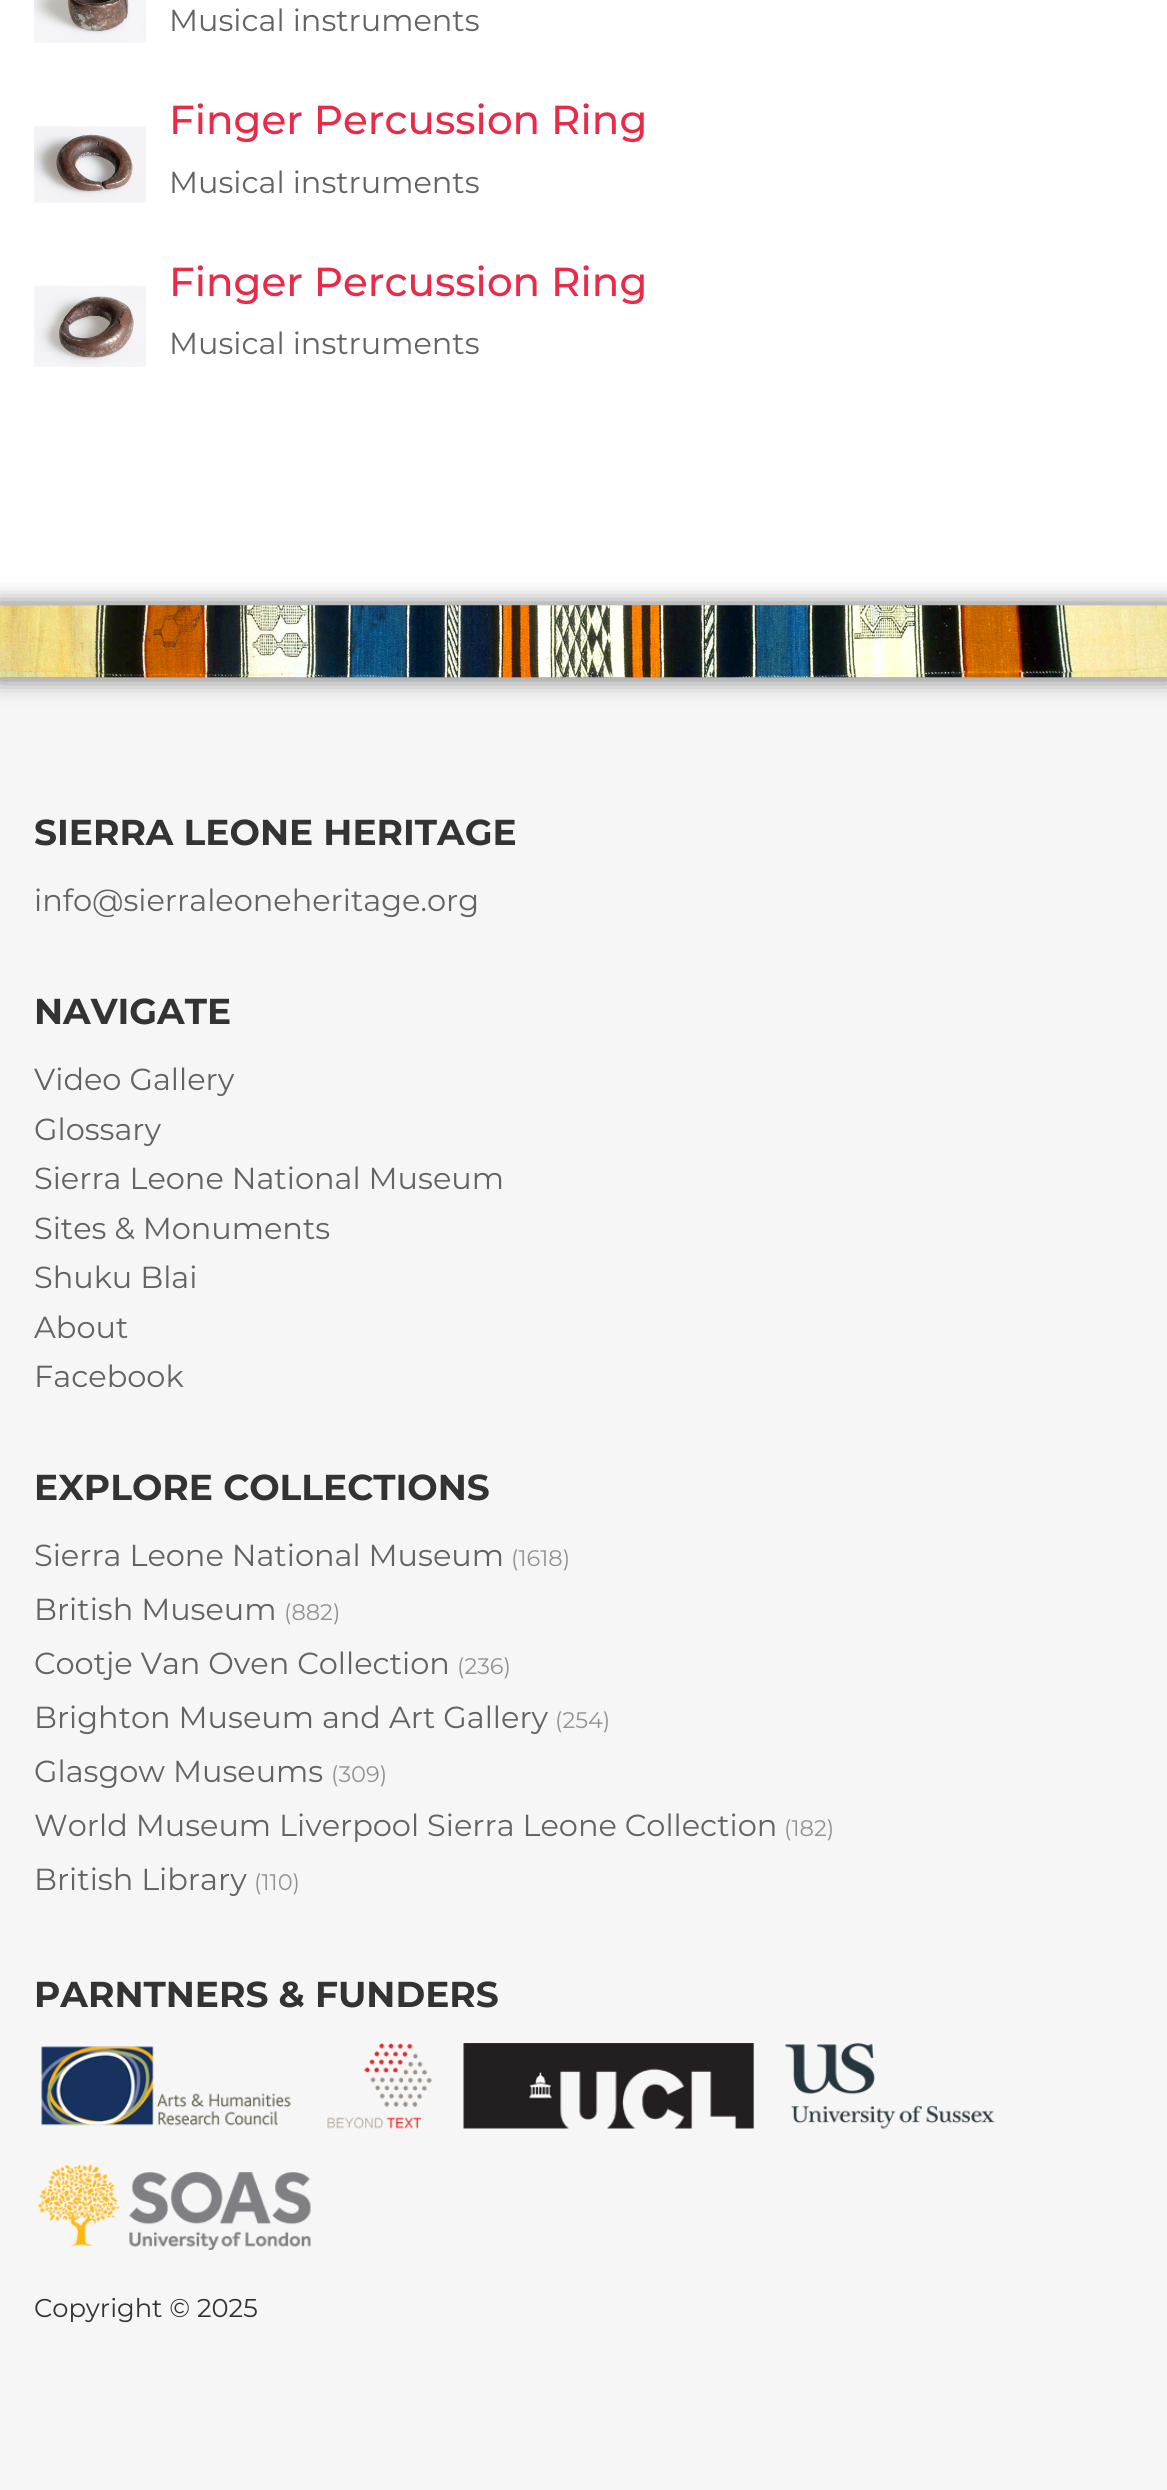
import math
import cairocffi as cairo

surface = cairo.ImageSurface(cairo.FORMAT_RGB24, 1167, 2490)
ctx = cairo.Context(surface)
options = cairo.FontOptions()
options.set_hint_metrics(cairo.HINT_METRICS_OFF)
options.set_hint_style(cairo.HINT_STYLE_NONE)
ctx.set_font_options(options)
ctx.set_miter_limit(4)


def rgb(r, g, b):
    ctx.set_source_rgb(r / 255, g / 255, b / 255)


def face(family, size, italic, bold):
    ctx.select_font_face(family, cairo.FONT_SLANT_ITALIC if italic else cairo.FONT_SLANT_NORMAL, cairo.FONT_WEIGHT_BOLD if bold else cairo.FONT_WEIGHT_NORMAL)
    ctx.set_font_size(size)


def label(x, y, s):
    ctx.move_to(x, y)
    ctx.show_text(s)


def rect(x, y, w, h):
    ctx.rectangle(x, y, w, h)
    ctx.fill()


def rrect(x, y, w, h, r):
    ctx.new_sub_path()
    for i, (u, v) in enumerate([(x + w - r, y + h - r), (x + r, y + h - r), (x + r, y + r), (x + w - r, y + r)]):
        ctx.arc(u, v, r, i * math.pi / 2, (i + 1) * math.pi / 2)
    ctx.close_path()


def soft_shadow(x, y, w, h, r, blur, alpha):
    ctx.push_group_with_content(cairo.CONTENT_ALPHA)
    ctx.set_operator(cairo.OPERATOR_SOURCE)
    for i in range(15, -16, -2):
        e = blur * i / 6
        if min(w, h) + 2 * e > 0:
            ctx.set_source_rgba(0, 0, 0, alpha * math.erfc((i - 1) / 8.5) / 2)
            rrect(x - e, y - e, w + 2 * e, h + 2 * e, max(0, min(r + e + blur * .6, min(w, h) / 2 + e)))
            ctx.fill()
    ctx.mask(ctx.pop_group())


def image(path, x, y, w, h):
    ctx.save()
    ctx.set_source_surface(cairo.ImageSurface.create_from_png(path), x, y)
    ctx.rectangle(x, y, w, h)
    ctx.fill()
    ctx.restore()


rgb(255, 255, 255)
ctx.paint()
image('image0.png', 34, 0, 112, 43)
face('Montserrat', 30.4, 0, 0)
rgb(99, 99, 101)
label(169, 31, 'Musical instruments')
image('image1.png', 34, 126, 112, 77)
face('Montserrat Medium', 40.5, 0, 0)
rgb(232, 43, 72)
label(169, 134, 'Finger Percussion Ring')
face('Montserrat', 30.4, 0, 0)
rgb(99, 99, 101)
label(169, 193, 'Musical instruments')
image('image2.png', 34, 286, 112, 81)
face('Montserrat Medium', 40.5, 0, 0)
rgb(232, 43, 72)
label(169, 296, 'Finger Percussion Ring')
face('Montserrat', 30.4, 0, 0)
rgb(99, 99, 101)
label(169, 354, 'Musical instruments')
rgb(246, 246, 246)
rect(0, 677, 1167, 1813)
rgb(0, 0, 0)
soft_shadow(-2, 603, 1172, 77, 0, 11, 0.5)
image('image3.png', 0, 605, 1167, 73)
face('Montserrat', 36, 0, 1)
rgb(51, 51, 51)
label(34, 845, 'SIERRA LEONE HERITAGE')
face('Montserrat', 30.4, 0, 0)
rgb(99, 99, 101)
label(34, 911, 'info@sierraleoneheritage.org')
face('Montserrat', 36, 0, 1)
rgb(51, 51, 51)
label(34, 1024, 'NAVIGATE')
face('Montserrat', 30.4, 0, 0)
rgb(99, 99, 101)
label(34, 1090, 'Video Gallery')
label(34, 1140, 'Glossary')
label(34, 1189, 'Sierra Leone National Museum')
label(34, 1239, 'Sites & Monuments')
label(34, 1288, 'Shuku Blai')
label(34, 1338, 'About')
label(34, 1387, 'Facebook')
face('Montserrat', 36, 0, 1)
rgb(51, 51, 51)
label(34, 1500, 'EXPLORE COLLECTIONS')
face('Montserrat', 30.4, 0, 0)
rgb(99, 99, 101)
label(34, 1566, 'Sierra Leone National Museum')
face('Montserrat', 22.5, 0, 0)
rgb(147, 147, 149)
label(511, 1566, '(1618)')
face('Montserrat', 30.4, 0, 0)
rgb(99, 99, 101)
label(34, 1620, 'British Museum')
face('Montserrat', 22.5, 0, 0)
rgb(147, 147, 149)
label(284, 1620, '(882)')
face('Montserrat', 30.4, 0, 0)
rgb(99, 99, 101)
label(34, 1674, 'Cootje Van Oven Collection')
face('Montserrat', 22.5, 0, 0)
rgb(147, 147, 149)
label(457, 1674, '(236)')
face('Montserrat', 30.4, 0, 0)
rgb(99, 99, 101)
label(34, 1728, 'Brighton Museum and Art Gallery')
face('Montserrat', 22.5, 0, 0)
rgb(147, 147, 149)
label(555, 1728, '(254)')
face('Montserrat', 30.4, 0, 0)
rgb(99, 99, 101)
label(34, 1782, 'Glasgow Museums')
face('Montserrat', 22.5, 0, 0)
rgb(147, 147, 149)
label(331, 1782, '(309)')
face('Montserrat', 30.4, 0, 0)
rgb(99, 99, 101)
label(34, 1836, 'World Museum Liverpool Sierra Leone Collection')
face('Montserrat', 22.5, 0, 0)
rgb(147, 147, 149)
label(784, 1836, '(182)')
face('Montserrat', 30.4, 0, 0)
rgb(99, 99, 101)
label(34, 1890, 'British Library')
face('Montserrat', 22.5, 0, 0)
rgb(147, 147, 149)
label(254, 1890, '(110)')
face('Montserrat', 36, 0, 1)
rgb(51, 51, 51)
label(34, 2007, 'PARNTNERS & FUNDERS')
image('image4.png', 41, 2046, 250, 80)
image('image5.png', 327, 2043, 105, 86)
image('image6.png', 463, 2043, 291, 86)
image('image7.png', 785, 2043, 210, 86)
image('image8.png', 38, 2164, 273, 86)
face('Montserrat', 25.75, 0, 0)
label(34, 2317, 'Copyright © 2025')
surface.write_to_png('render.png')
